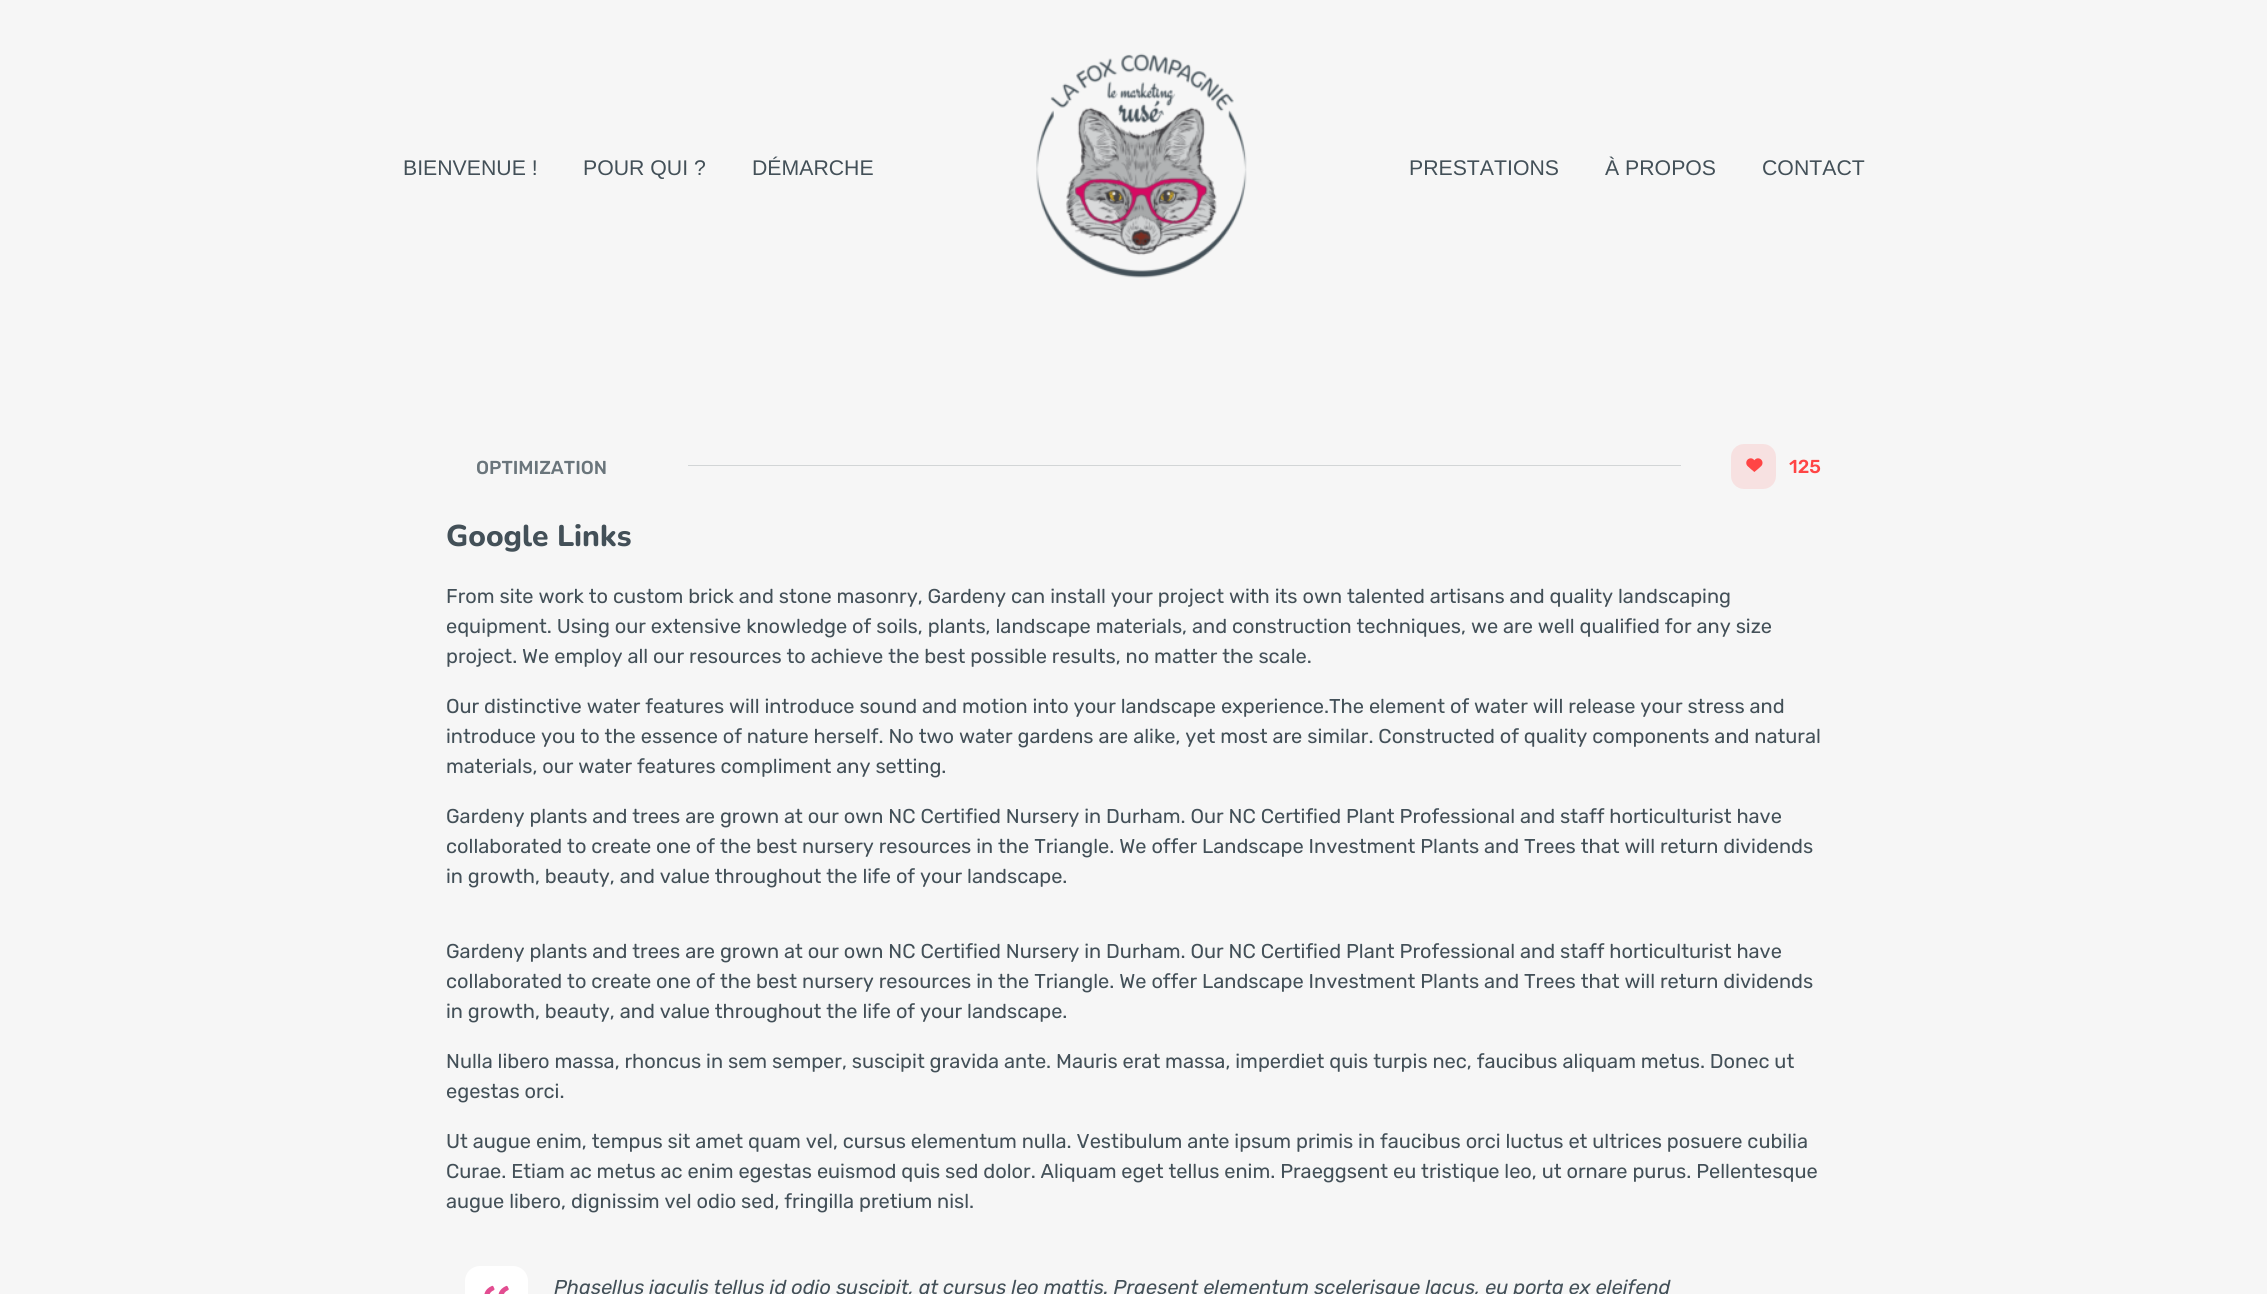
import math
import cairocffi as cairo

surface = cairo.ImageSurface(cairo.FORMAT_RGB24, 2267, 1294)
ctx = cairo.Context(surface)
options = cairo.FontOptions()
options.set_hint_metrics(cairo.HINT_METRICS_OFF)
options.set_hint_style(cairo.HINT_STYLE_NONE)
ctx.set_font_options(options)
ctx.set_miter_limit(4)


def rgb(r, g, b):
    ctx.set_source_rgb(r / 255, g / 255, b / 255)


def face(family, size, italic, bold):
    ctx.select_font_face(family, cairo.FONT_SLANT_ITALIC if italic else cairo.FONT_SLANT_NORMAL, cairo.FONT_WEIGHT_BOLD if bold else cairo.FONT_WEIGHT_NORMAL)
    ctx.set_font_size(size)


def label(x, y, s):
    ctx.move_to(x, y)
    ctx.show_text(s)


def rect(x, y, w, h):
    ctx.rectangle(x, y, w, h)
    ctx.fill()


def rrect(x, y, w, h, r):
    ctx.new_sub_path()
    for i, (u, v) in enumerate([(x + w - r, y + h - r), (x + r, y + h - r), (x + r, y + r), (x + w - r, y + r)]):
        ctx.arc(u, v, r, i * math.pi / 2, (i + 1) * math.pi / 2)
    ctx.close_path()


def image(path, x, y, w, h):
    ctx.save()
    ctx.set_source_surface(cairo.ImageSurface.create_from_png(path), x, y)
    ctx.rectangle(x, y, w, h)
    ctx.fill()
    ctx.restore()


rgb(246, 246, 246)
ctx.paint()
face('Liberation Sans', 21.25, 0, 0)
rgb(67, 80, 88)
label(403, 175, 'BIENVENUE !')
label(583, 175, 'POUR QUI ?')
label(752, 175, 'DÉMARCHE')
image('image0.png', 1036, 53, 211, 225)
label(1409, 175, 'PRESTATIONS')
label(1605, 175, 'À PROPOS')
label(1762, 175, 'CONTACT')
face('Rubik Medium', 18.75, 0, 0)
rgb(106, 117, 123)
label(476, 474, 'OPTIMIZATION')
rgb(210, 213, 214)
rect(688, 465, 993, 1)
rgb(247, 225, 225)
rrect(1731, 444, 45, 45, 13)
ctx.fill()
image('image1.png', 1746, 458, 17, 14)
rgb(255, 69, 69)
label(1789, 473, '125')
face('Nunito ExtraBold', 30, 0, 0)
rgb(67, 80, 88)
label(446, 546, 'Google Links')
face('Rubik', 20, 0, 0)
label(446, 603, 'From site work to custom brick and stone masonry, Gardeny can install your project with its own talented artisans and quality landscaping')
label(446, 633, 'equipment. Using our extensive knowledge of soils, plants, landscape materials, and construction techniques, we are well qualified for any size')
label(446, 663, 'project. We employ all our resources to achieve the best possible results, no matter the scale.')
label(446, 713, 'Our distinctive water features will introduce sound and motion into your landscape experience.The element of water will release your stress and')
label(446, 743, 'introduce you to the essence of nature herself. No two water gardens are alike, yet most are similar. Constructed of quality components and natural')
label(446, 773, 'materials, our water features compliment any setting.')
label(446, 823, 'Gardeny plants and trees are grown at our own NC Certified Nursery in Durham. Our NC Certified Plant Professional and staff horticulturist have')
label(446, 853, 'collaborated to create one of the best nursery resources in the Triangle. We offer Landscape Investment Plants and Trees that will return dividends')
label(446, 883, 'in growth, beauty, and value throughout the life of your landscape.')
label(446, 958, 'Gardeny plants and trees are grown at our own NC Certified Nursery in Durham. Our NC Certified Plant Professional and staff horticulturist have')
label(446, 988, 'collaborated to create one of the best nursery resources in the Triangle. We offer Landscape Investment Plants and Trees that will return dividends')
label(446, 1018, 'in growth, beauty, and value throughout the life of your landscape.')
label(446, 1068, 'Nulla libero massa, rhoncus in sem semper, suscipit gravida ante. Mauris erat massa, imperdiet quis turpis nec, faucibus aliquam metus. Donec ut')
label(446, 1098, 'egestas orci.')
label(446, 1148, 'Ut augue enim, tempus sit amet quam vel, cursus elementum nulla. Vestibulum ante ipsum primis in faucibus orci luctus et ultrices posuere cubilia')
label(446, 1178, 'Curae. Etiam ac metus ac enim egestas euismod quis sed dolor. Aliquam eget tellus enim. Praeggsent eu tristique leo, ut ornare purus. Pellentesque')
label(446, 1208, 'augue libero, dignissim vel odio sed, fringilla pretium nisl.')
rgb(255, 255, 255)
rrect(465, 1266, 63, 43, 15)
ctx.fill()
image('image2.png', 484, 1285, 25, 9)
face('Rubik', 20, 1, 0)
rgb(67, 80, 88)
label(554, 1294, 'Phasellus iaculis tellus id odio suscipit, at cursus leo mattis. Praesent elementum scelerisque lacus, eu porta ex eleifend')
surface.write_to_png('render.png')
